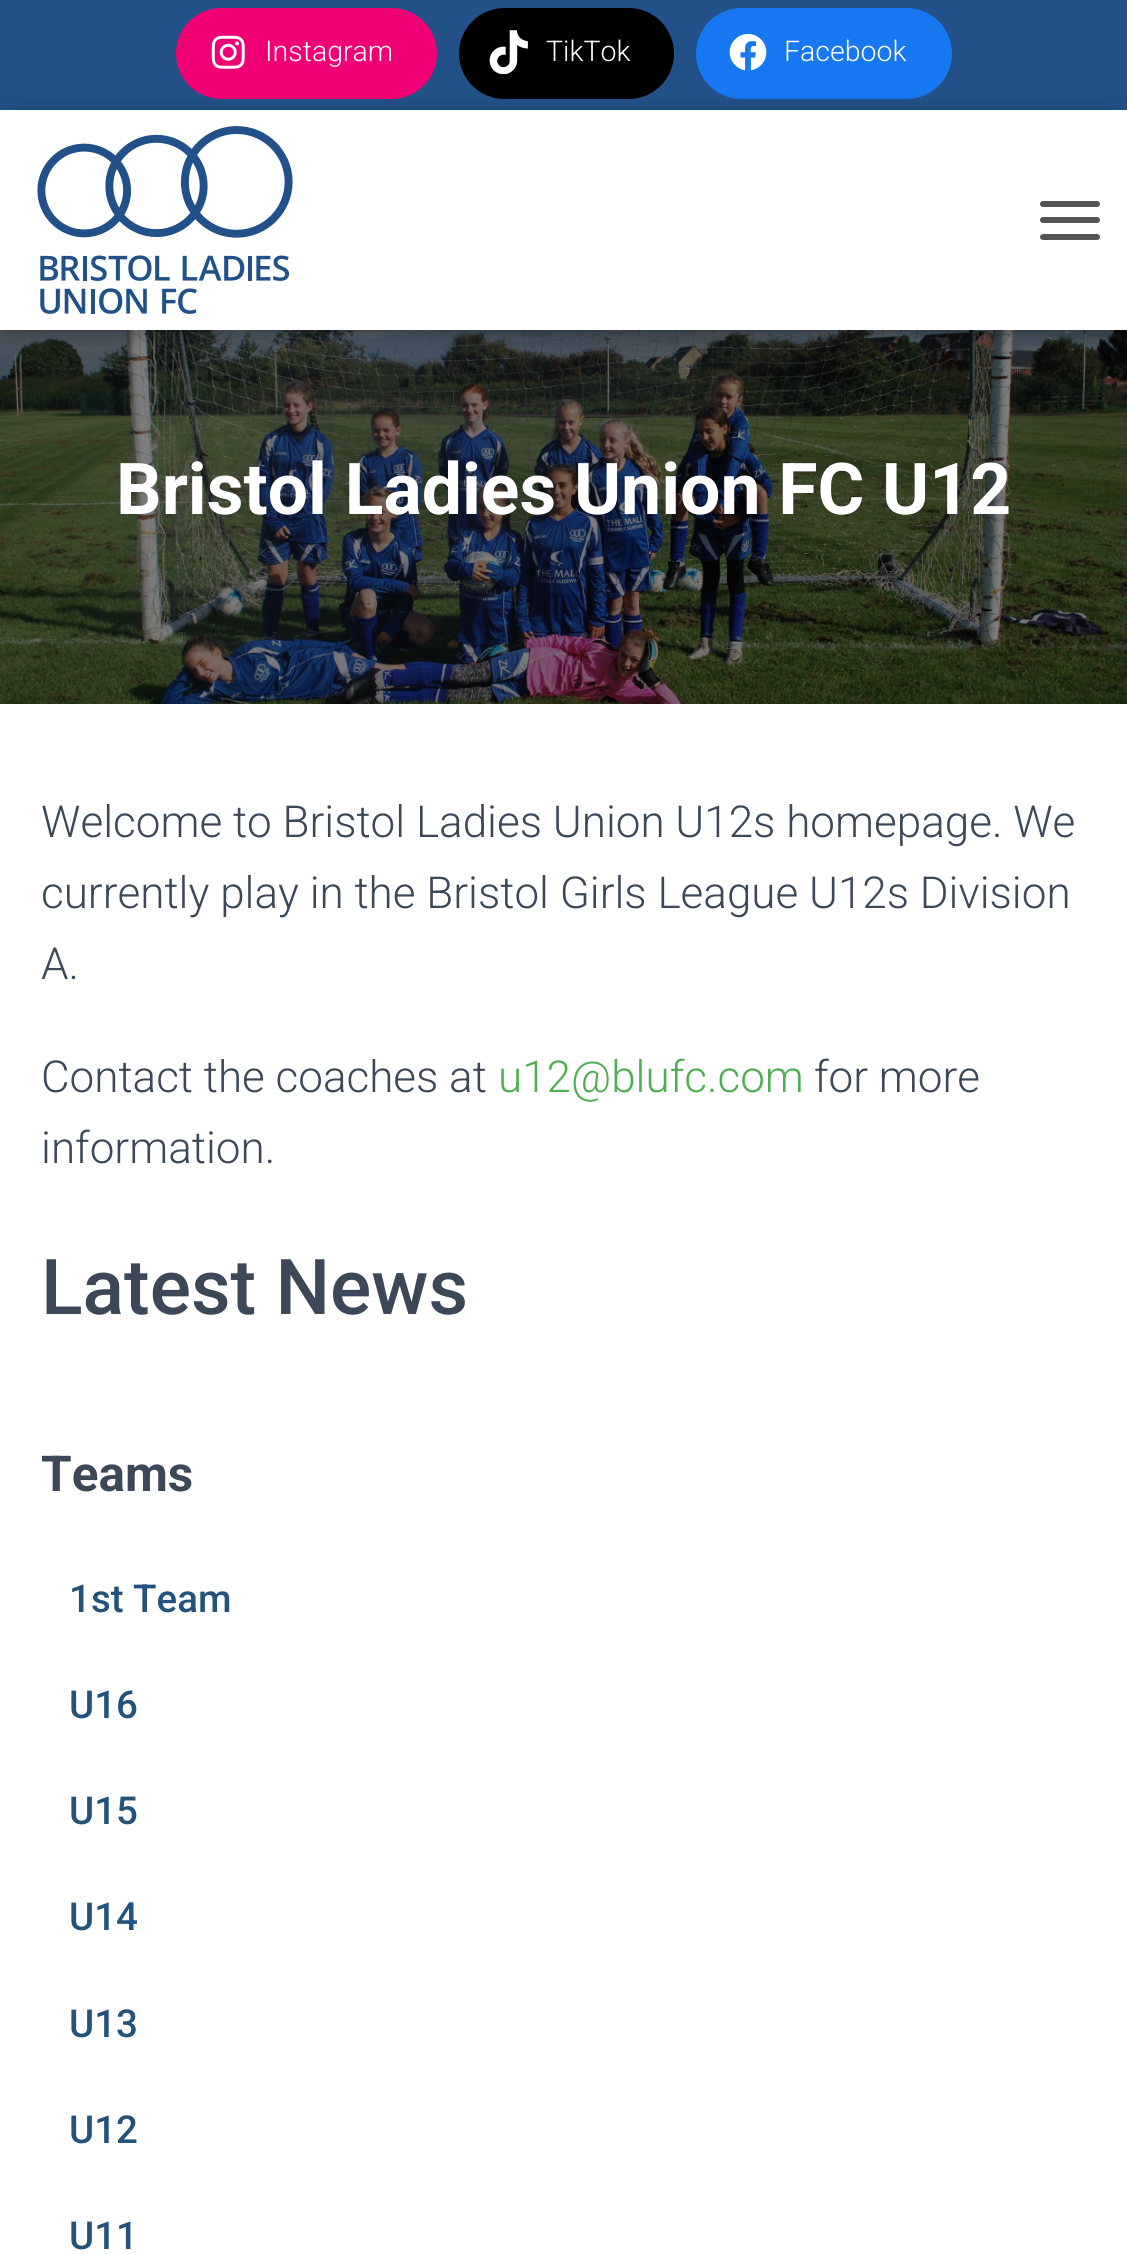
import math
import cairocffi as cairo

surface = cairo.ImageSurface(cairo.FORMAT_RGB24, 1127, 2254)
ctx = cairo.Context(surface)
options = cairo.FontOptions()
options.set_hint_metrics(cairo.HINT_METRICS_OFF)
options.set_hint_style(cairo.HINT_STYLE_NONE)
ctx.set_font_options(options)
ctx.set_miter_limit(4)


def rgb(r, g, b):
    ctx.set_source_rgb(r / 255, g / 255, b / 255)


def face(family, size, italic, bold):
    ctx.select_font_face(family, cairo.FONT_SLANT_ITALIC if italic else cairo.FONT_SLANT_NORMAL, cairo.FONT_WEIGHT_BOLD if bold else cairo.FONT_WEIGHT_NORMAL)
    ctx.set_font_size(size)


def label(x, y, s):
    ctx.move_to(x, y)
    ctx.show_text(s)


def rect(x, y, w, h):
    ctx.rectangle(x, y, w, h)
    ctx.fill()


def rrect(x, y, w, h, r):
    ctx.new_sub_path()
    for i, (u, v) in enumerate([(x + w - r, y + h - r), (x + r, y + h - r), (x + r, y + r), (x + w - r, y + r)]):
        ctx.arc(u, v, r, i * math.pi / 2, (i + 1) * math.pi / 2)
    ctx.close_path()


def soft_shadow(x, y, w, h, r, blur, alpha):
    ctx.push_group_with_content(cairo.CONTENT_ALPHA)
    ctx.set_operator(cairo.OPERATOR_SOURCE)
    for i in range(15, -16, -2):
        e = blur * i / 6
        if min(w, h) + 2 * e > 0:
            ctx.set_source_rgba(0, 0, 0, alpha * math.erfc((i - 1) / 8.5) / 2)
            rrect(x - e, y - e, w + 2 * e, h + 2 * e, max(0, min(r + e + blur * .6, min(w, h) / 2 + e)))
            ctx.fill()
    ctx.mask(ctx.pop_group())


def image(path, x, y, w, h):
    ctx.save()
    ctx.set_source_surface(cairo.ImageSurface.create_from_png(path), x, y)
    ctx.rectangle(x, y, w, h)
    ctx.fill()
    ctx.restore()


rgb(34, 81, 137)
ctx.paint()
rgb(240, 0, 117)
rrect(176, 8, 261, 91, 45.5)
ctx.fill()
image('image0.png', 211, 35, 34, 34)
face('Roboto Light', 28.5, 0, 0)
rgb(255, 255, 255)
label(265, 61, 'Instagram')
rgb(0, 0, 0)
rrect(459, 8, 215, 91, 45.5)
ctx.fill()
image('image1.png', 489, 30, 39, 44)
rgb(255, 255, 255)
label(546, 61, 'TikTok')
rgb(23, 120, 242)
rrect(696, 8, 256, 91, 45.5)
ctx.fill()
image('image2.png', 729, 33, 38, 38)
rgb(255, 255, 255)
label(784, 61, 'Facebook')
image('image4.png', 0, 330, 1127, 374)
rgb(0, 0, 0)
soft_shadow(6, 127, 1116, 209, 0, 7, 0.1)
soft_shadow(0, 113, 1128, 220, 0, 14, 0.12)
soft_shadow(17, 129, 1094, 187, 0, 14, 0.42)
rgb(255, 255, 255)
rect(0, 110, 1127, 220)
image('image3.png', 37, 126, 256, 188)
rgb(85, 85, 85)
rrect(1040, 201, 60, 6, 3)
ctx.fill()
rrect(1040, 217, 60, 6, 3)
ctx.fill()
rrect(1040, 234, 60, 6, 3)
ctx.fill()
face('Roboto', 71.5, 0, 1)
rgb(255, 255, 255)
label(116, 514, 'Bristol Ladies Union FC U12')
rgb(0, 0, 0)
soft_shadow(-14, 707, 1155, 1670, 0, 41, 0.12)
rgb(255, 255, 255)
rect(0, 704, 1127, 1550)
face('Roboto Light', 44, 0, 0)
rgb(60, 72, 88)
label(41, 837, 'Welcome to Bristol Ladies Union U12s homepage. We')
label(41, 908, 'currently play in the Bristol Girls League U12s Division')
label(41, 979, 'A.')
label(41, 1092, 'Contact the coaches at')
rgb(76, 175, 80)
label(498, 1092, 'u12@blufc.com')
rgb(60, 72, 88)
label(814, 1092, 'for more')
label(41, 1163, 'information.')
face('Roboto Medium', 77, 0, 0)
label(41, 1314, 'Latest News')
face('Roboto', 49.5, 0, 1)
label(41, 1491, 'Teams')
face('Roboto Medium', 38.5, 0, 0)
rgb(35, 82, 124)
label(69, 1612, '1st Team')
label(69, 1718, 'U16')
label(69, 1824, 'U15')
label(69, 1930, 'U14')
label(69, 2037, 'U13')
label(69, 2143, 'U12')
label(69, 2249, 'U11')
surface.write_to_png('render.png')
